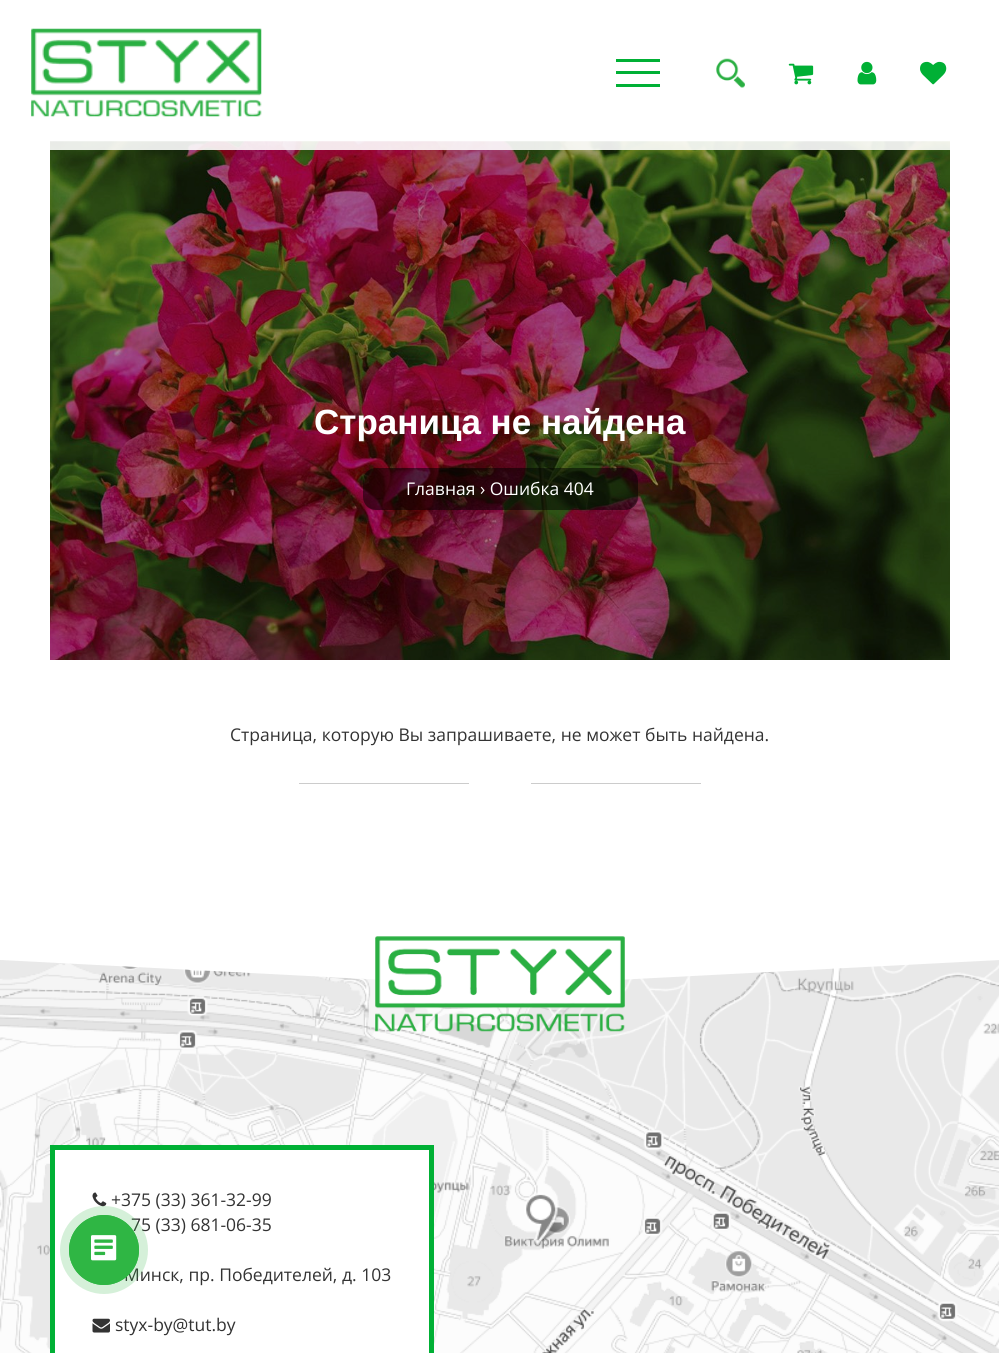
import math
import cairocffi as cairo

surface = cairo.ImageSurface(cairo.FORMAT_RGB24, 999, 1353)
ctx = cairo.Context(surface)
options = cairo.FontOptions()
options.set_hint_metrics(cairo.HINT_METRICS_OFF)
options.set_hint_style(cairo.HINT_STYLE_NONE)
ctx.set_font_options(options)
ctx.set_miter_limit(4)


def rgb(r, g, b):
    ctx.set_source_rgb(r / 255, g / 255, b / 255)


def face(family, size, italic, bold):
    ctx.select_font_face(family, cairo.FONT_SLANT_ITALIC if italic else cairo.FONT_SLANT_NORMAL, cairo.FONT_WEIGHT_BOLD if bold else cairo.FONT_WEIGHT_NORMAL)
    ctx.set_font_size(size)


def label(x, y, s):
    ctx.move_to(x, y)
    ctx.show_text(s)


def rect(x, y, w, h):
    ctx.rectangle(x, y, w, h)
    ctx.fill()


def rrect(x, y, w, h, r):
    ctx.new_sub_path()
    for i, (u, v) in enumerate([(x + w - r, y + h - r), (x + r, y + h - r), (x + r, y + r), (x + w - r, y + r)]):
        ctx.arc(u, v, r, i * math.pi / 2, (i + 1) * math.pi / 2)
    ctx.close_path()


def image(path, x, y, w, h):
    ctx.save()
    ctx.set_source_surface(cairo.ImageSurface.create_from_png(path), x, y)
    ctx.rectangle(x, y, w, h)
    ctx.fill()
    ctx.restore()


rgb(255, 255, 255)
ctx.paint()
image('image5.png', 50, 141, 900, 519)
ctx.rectangle(-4.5, -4.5, 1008, 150)
ctx.set_source_rgba(1, 1, 1, 0.9)
ctx.set_line_width(9)
ctx.stroke()
image('image0.png', 31, 28, 231, 89)
rgb(0, 176, 53)
rect(616, 71, 44, 3)
rect(616, 59, 44, 3)
rect(616, 84, 44, 3)
image('image1.png', 716, 58, 29, 30)
image('image2.png', 788, 63, 26, 22)
image('image3.png', 857, 61, 20, 24)
image('image4.png', 920, 61, 27, 24)
face('Liberation Sans', 35, 0, 1)
rgb(255, 255, 255)
label(314, 434, 'Страница не найдена')
ctx.set_source_rgba(0, 0, 0, 0.5)
rrect(363, 468, 275, 42, 13)
ctx.fill()
face('Open Sans', 17.5, 0, 0)
rgb(255, 255, 255)
label(406, 495, 'Главная › Ошибка 404')
rgb(51, 51, 51)
label(230, 741, 'Страница, которую Вы запрашиваете, не может быть найдена.')
rgb(204, 204, 204)
rect(299, 783, 170, 1)
rect(531, 783, 170, 1)
image('image8.png', 0, 960, 999, 393)
rgb(255, 255, 255)
ctx.rectangle(52.5, 1147.5, 379, 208)
ctx.fill_preserve()
rgb(0, 176, 53)
ctx.set_line_width(5)
ctx.stroke()
image('image9.png', 92, 1192, 15, 15)
rgb(51, 51, 51)
label(111, 1206, '+375 (33) 361-32-99')
label(131, 1231, '75 (33) 681-06-35')
label(124, 1281, 'Минск, пр. Победителей, д. 103')
ctx.set_source_rgba(0.184, 0.714, 0.267, 0.2)
ctx.new_path()
ctx.arc(104, 1250, 44, 0, 2 * math.pi)
ctx.fill()
ctx.arc(104, 1250, 34.5, 0, 2 * math.pi)
rgb(47, 182, 68)
ctx.set_line_width(1)
ctx.stroke()
ctx.arc(104, 1250, 35, 0, 2 * math.pi)
ctx.fill()
image('image6.png', 91, 1235, 26, 26)
ctx.save()
ctx.rectangle(0, 880, 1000, 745)
ctx.clip()
rgb(255, 255, 255)
ctx.new_path()
ctx.move_to(-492, 809)
ctx.line_to(507, 861)
ctx.line_to(500, 986)
ctx.line_to(-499, 934)
ctx.close_path()
ctx.fill()
ctx.new_path()
ctx.move_to(493, 861)
ctx.line_to(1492, 809)
ctx.line_to(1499, 934)
ctx.line_to(500, 986)
ctx.close_path()
ctx.fill()
ctx.restore()
image('image7.png', 375, 936, 250, 96)
image('image10.png', 92, 1318, 18, 15)
rgb(51, 51, 51)
label(115, 1331, 'styx-by@tut.by')
surface.write_to_png('render.png')
